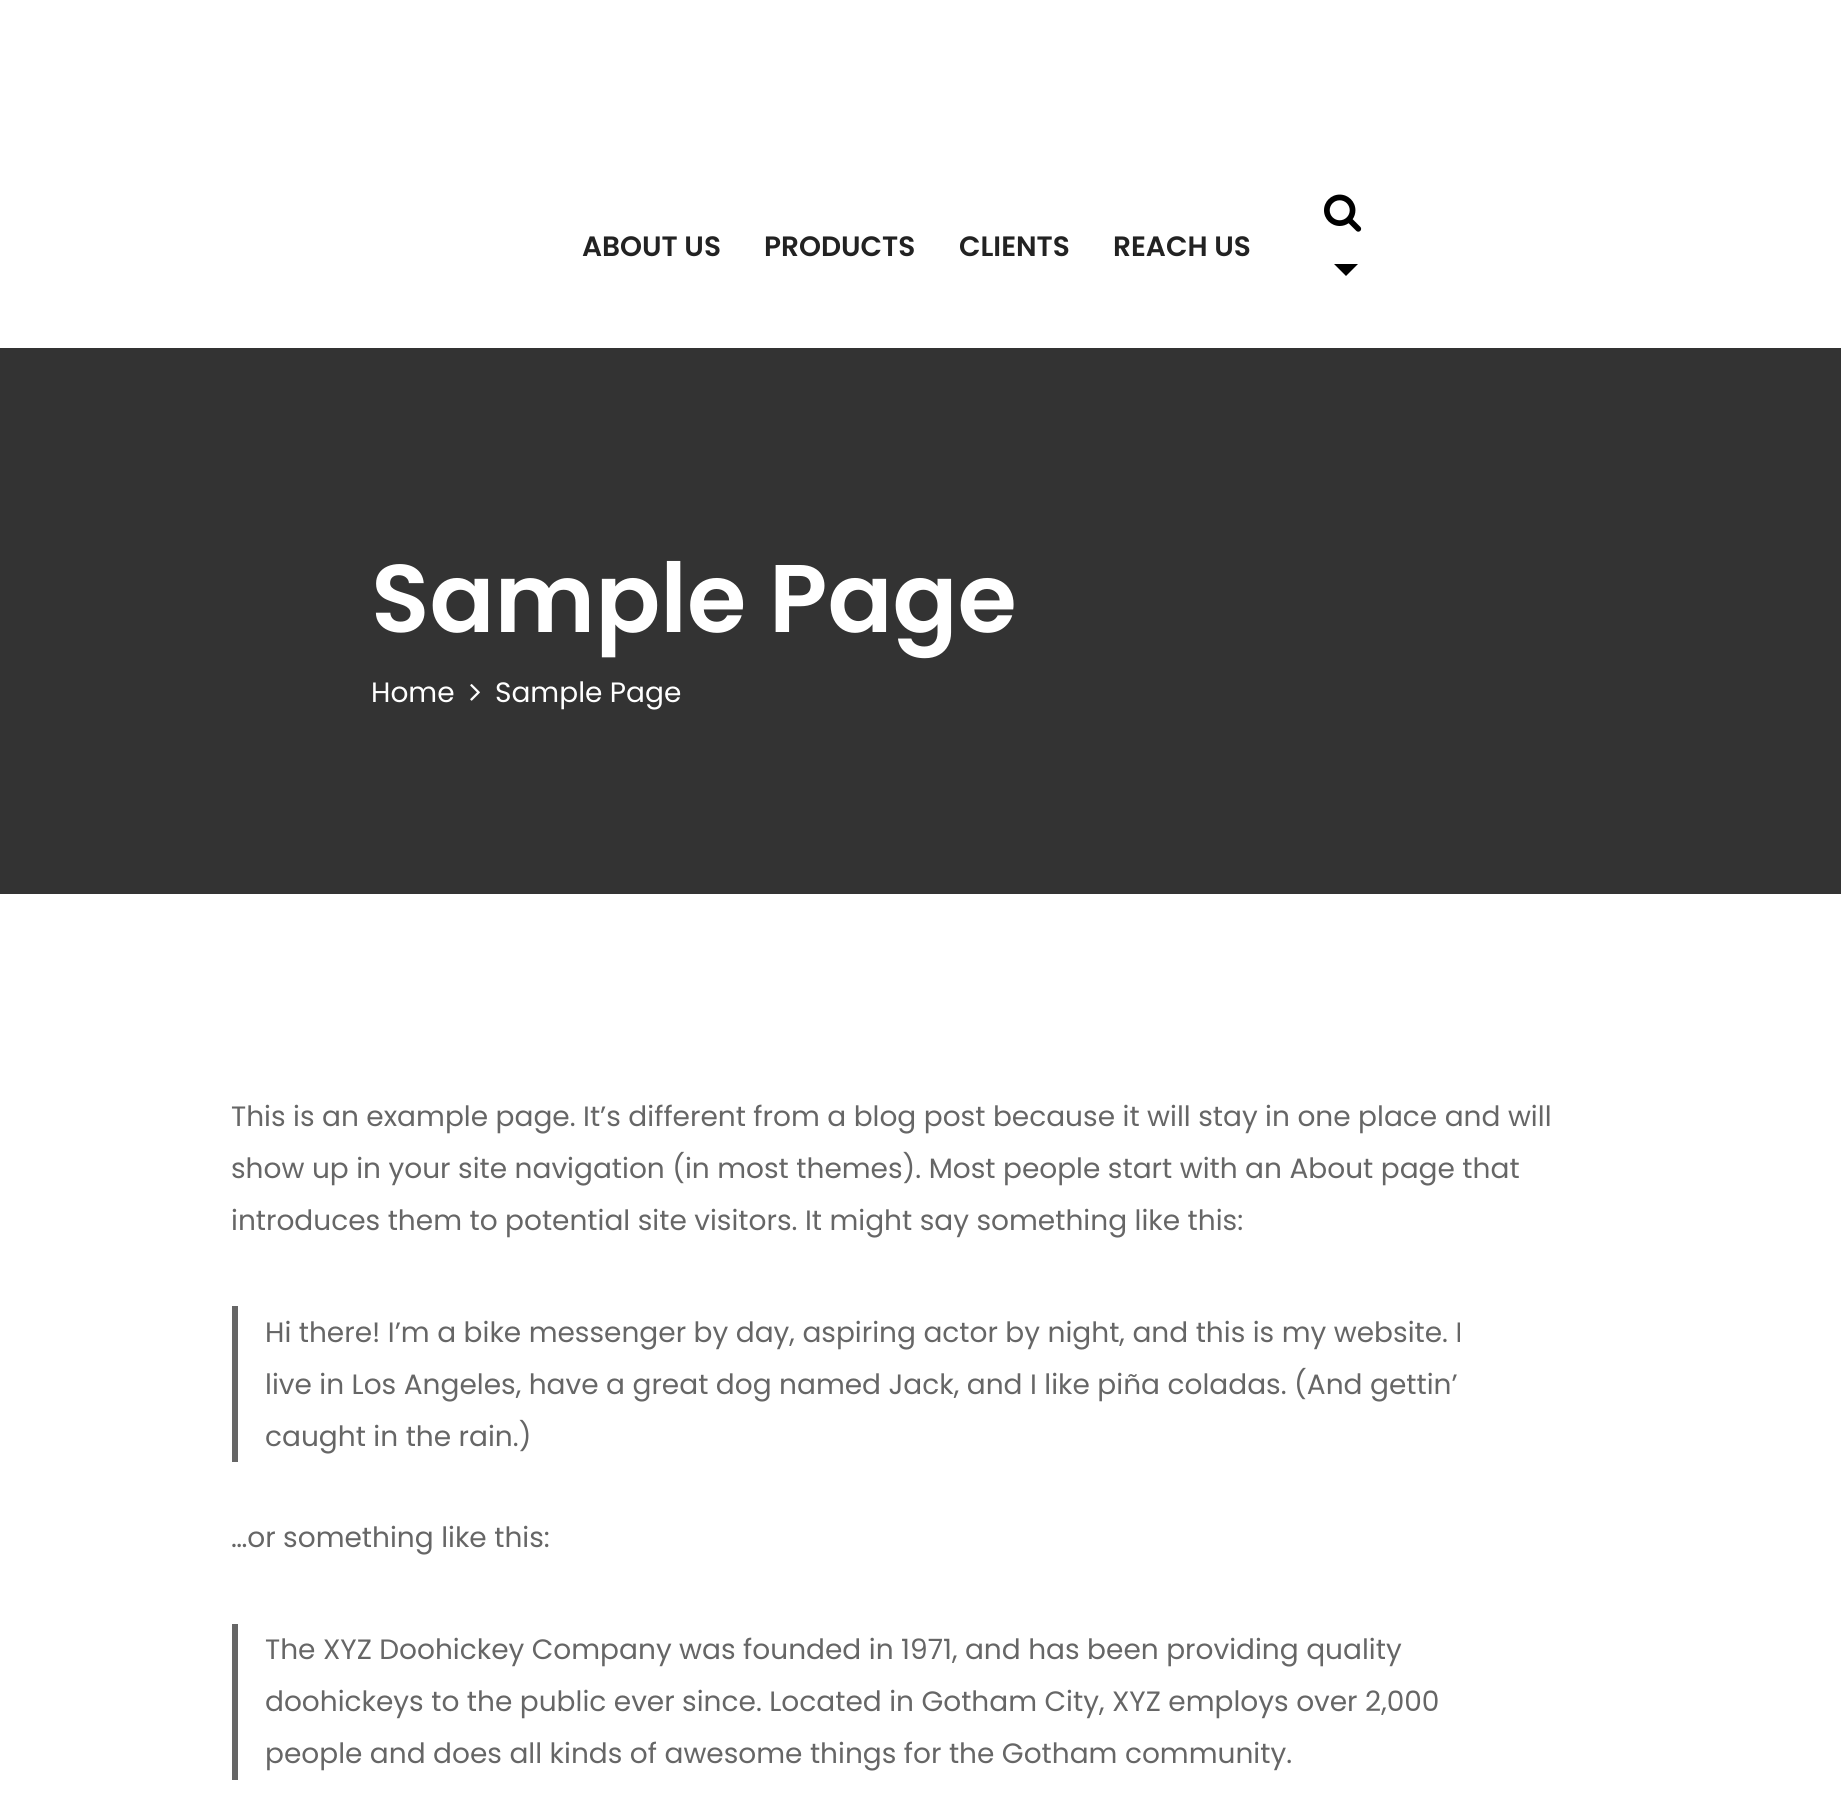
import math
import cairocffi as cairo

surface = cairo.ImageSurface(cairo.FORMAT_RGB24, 1841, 1800)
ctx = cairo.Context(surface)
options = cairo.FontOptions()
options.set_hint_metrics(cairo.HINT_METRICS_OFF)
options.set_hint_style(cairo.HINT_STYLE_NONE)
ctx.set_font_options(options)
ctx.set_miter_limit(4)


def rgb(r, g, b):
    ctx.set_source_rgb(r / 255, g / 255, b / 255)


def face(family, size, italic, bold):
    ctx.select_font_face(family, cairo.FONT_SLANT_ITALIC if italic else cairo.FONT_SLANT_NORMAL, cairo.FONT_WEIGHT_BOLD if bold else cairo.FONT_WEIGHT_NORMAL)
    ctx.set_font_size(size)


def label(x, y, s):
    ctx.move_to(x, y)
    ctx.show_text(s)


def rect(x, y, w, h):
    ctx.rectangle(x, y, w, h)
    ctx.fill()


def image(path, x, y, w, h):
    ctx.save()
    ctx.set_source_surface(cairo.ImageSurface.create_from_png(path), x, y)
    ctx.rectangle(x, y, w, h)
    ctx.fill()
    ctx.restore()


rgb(255, 255, 255)
ctx.paint()
face('Poppins SemiBold', 28, 0, 0)
rgb(34, 34, 34)
label(582, 256, 'ABOUT US')
label(764, 256, 'PRODUCTS')
label(959, 256, 'CLIENTS')
label(1113, 256, 'REACH US')
image('image0.png', 1324, 194, 38, 38)
rgb(0, 0, 0)
ctx.new_path()
ctx.move_to(1334, 264)
ctx.line_to(1358, 264)
ctx.line_to(1346, 276)
ctx.close_path()
ctx.fill()
rgb(51, 51, 51)
rect(0, 348, 1841, 546)
face('Poppins SemiBold', 96, 0, 0)
rgb(255, 255, 255)
label(371, 632, 'Sample Page')
face('Poppins', 28, 0, 0)
label(371, 702, 'Home')
image('image1.png', 470, 684, 10, 17)
label(495, 702, 'Sample Page')
rgb(102, 102, 102)
label(231, 1126, 'This is an example page. It’s different from a blog post because it will stay in one place and will')
label(231, 1178, 'show up in your site navigation (in most themes). Most people start with an About page that')
label(231, 1230, 'introduces them to potential site visitors. It might say something like this:')
rect(232, 1306, 6, 156)
label(265, 1342, 'Hi there! I’m a bike messenger by day, aspiring actor by night, and this is my website. I')
label(265, 1394, 'live in Los Angeles, have a great dog named Jack, and I like piña coladas. (And gettin’')
label(265, 1446, 'caught in the rain.)')
label(231, 1547, '…or something like this:')
rect(232, 1624, 6, 156)
label(265, 1659, 'The XYZ Doohickey Company was founded in 1971, and has been providing quality')
label(265, 1711, 'doohickeys to the public ever since. Located in Gotham City, XYZ employs over 2,000')
label(265, 1763, 'people and does all kinds of awesome things for the Gotham community.')
surface.write_to_png('render.png')
